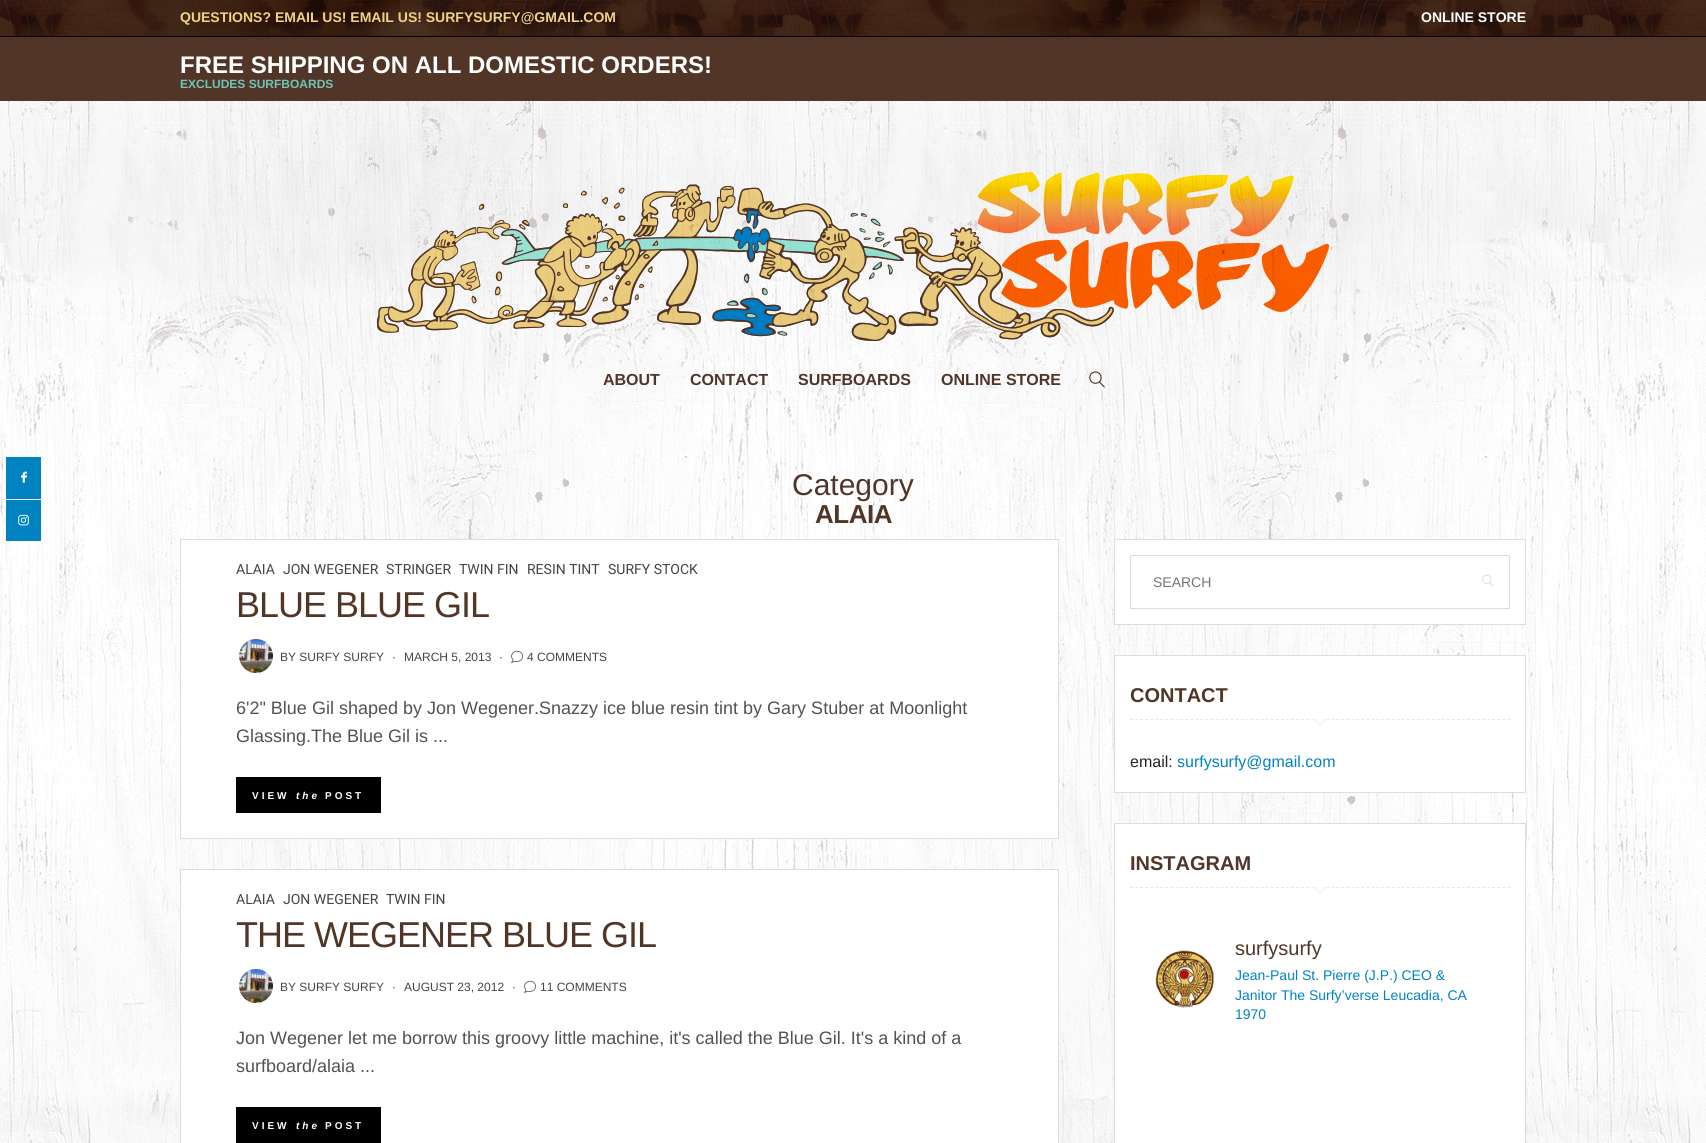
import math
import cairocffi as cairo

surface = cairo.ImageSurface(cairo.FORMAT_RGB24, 1706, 1143)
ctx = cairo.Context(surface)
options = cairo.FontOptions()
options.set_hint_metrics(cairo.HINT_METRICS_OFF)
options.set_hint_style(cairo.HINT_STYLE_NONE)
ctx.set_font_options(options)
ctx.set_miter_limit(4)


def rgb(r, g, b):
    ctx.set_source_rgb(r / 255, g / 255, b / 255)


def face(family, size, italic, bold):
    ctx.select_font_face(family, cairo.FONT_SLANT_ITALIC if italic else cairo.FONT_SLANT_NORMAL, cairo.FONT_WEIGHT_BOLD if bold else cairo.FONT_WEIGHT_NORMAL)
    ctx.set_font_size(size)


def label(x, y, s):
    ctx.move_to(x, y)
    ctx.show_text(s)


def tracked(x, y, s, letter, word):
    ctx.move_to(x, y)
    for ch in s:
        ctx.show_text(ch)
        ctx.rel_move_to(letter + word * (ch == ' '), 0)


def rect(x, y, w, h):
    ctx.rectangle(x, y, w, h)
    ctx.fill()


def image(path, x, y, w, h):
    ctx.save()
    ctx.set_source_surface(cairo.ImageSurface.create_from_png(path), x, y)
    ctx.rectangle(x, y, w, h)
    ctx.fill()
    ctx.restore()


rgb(255, 255, 255)
ctx.paint()
image('image0.png', 0, 101, 1706, 1042)
rgb(255, 255, 255)
rect(6, 499, 35, 43)
rgb(0, 131, 192)
rect(6, 457, 35, 42)
image('image1.png', 21, 471, 6, 12)
rect(6, 500, 35, 41)
image('image2.png', 18, 514, 11, 12)
image('image3.png', 0, 0, 1706, 36)
rgb(0, 0, 0)
rect(0, 36, 1706, 1)
face('Liberation Sans', 14, 0, 1)
rgb(241, 210, 130)
label(180, 22, 'QUESTIONS? EMAIL US! EMAIL US! SURFYSURFY@GMAIL.COM')
rgb(255, 255, 255)
label(1421, 22, 'ONLINE STORE')
rgb(81, 54, 40)
rect(0, 37, 1706, 64)
face('Liberation Sans', 24, 0, 1)
rgb(255, 255, 255)
label(180, 73, 'FREE SHIPPING ON ALL DOMESTIC ORDERS!')
face('Liberation Sans', 12, 0, 1)
rgb(114, 196, 180)
label(180, 88, 'EXCLUDES SURFBOARDS')
image('image4.png', 377, 172, 952, 169)
face('Liberation Sans', 16, 0, 1)
rgb(81, 54, 40)
label(603, 385, 'ABOUT')
label(690, 385, 'CONTACT')
label(798, 385, 'SURFBOARDS')
label(941, 385, 'ONLINE STORE')
image('image5.png', 1089, 371, 16, 17)
face('Liberation Sans', 30, 0, 0)
label(792, 495, 'Category')
face('Liberation Sans', 26, 0, 1)
tracked(815, 523, 'ALAIA', -0.5, 0)
rgb(255, 255, 255)
ctx.rectangle(180.5, 539.5, 878, 299)
ctx.fill_preserve()
rgb(222, 222, 222)
ctx.set_line_width(1)
ctx.stroke()
face('Heebo', 14, 0, 0)
rgb(68, 68, 68)
label(236, 574, 'ALAIA')
label(283, 574, 'JON WEGENER')
label(386, 574, 'STRINGER')
label(459, 574, 'TWIN FIN')
label(527, 574, 'RESIN TINT')
label(608, 574, 'SURFY STOCK')
face('Liberation Sans', 36, 0, 0)
rgb(81, 54, 40)
tracked(236, 617, 'BLUE BLUE GIL', -1, 0)
image('image6.png', 239, 639, 34, 34)
face('Liberation Sans', 12, 0, 0)
rgb(68, 68, 68)
label(280, 661, 'BY SURFY SURFY')
label(392, 661, '·')
label(404, 661, 'MARCH 5, 2013')
label(499, 661, '·')
image('image7.png', 511, 650, 12, 13)
label(527, 661, '4 COMMENTS')
face('Liberation Sans', 18, 0, 0)
rgb(82, 82, 82)
label(236, 714, '6\'2" Blue Gil shaped by Jon Wegener.Snazzy ice blue resin tint by Gary Stuber at Moonlight')
label(236, 742, 'Glassing.The Blue Gil is ...')
rgb(0, 0, 0)
rect(236, 777, 145, 36)
face('Liberation Sans', 10, 0, 1)
rgb(255, 255, 255)
tracked(252, 799, 'VIEW', 3, 0)
face('Liberation Sans', 10, 1, 1)
tracked(296, 799, 'the', 3, 0)
face('Liberation Sans', 10, 0, 1)
tracked(325, 799, 'POST', 3, 0)
ctx.rectangle(180.5, 869.5, 878, 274)
ctx.fill_preserve()
rgb(222, 222, 222)
ctx.stroke()
face('Heebo', 14, 0, 0)
rgb(68, 68, 68)
label(236, 904, 'ALAIA')
label(283, 904, 'JON WEGENER')
label(386, 904, 'TWIN FIN')
face('Liberation Sans', 36, 0, 0)
rgb(81, 54, 40)
tracked(236, 947, 'THE WEGENER BLUE GIL', -1, 0)
image('image8.png', 239, 969, 34, 34)
face('Liberation Sans', 12, 0, 0)
rgb(68, 68, 68)
label(280, 991, 'BY SURFY SURFY')
label(392, 991, '·')
label(404, 991, 'AUGUST 23, 2012')
label(512, 991, '·')
image('image7.png', 524, 980, 12, 13)
label(540, 991, '11 COMMENTS')
face('Liberation Sans', 18, 0, 0)
rgb(82, 82, 82)
label(236, 1044, 'Jon Wegener let me borrow this groovy little machine, it\'s called the Blue Gil. It\'s a kind of a')
label(236, 1072, 'surfboard/alaia ...')
rgb(0, 0, 0)
rect(236, 1107, 145, 36)
face('Liberation Sans', 10, 0, 1)
rgb(255, 255, 255)
tracked(252, 1129, 'VIEW', 3, 0)
face('Liberation Sans', 10, 1, 1)
tracked(296, 1129, 'the', 3, 0)
face('Liberation Sans', 10, 0, 1)
tracked(325, 1129, 'POST', 3, 0)
ctx.rectangle(1114.5, 539.5, 411, 85)
ctx.fill_preserve()
rgb(222, 222, 222)
ctx.stroke()
ctx.rectangle(1130.5, 555.5, 379, 53)
rgb(221, 221, 221)
ctx.stroke()
face('Liberation Sans', 14, 0, 0)
rgb(117, 117, 117)
label(1153, 587, 'SEARCH')
image('image9.png', 1482, 574, 12, 13)
rgb(255, 255, 255)
ctx.rectangle(1114.5, 655.5, 411, 137)
ctx.fill_preserve()
rgb(222, 222, 222)
ctx.stroke()
ctx.new_path()
ctx.move_to(1130, 719.5)
ctx.line_to(1510, 719.5)
rgb(233, 233, 233)
ctx.set_dash([3, 2.03])
ctx.stroke()
face('Liberation Sans', 20, 0, 1)
rgb(81, 54, 40)
label(1130, 702, 'CONTACT')
rgb(233, 233, 233)
ctx.new_path()
ctx.move_to(1314, 719)
ctx.line_to(1326, 719)
ctx.line_to(1320, 725)
ctx.close_path()
ctx.fill()
rgb(255, 255, 255)
ctx.new_path()
ctx.move_to(1314, 718)
ctx.line_to(1326, 718)
ctx.line_to(1320, 724)
ctx.close_path()
ctx.fill()
face('Liberation Sans', 16, 0, 0)
rgb(33, 37, 41)
label(1130, 767, 'email:')
rgb(0, 131, 192)
label(1177, 767, 'surfysurfy@gmail.com')
rgb(255, 255, 255)
ctx.rectangle(1114.5, 823.5, 411, 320)
ctx.fill_preserve()
rgb(222, 222, 222)
ctx.set_dash([])
ctx.stroke()
ctx.new_path()
ctx.move_to(1130, 887.5)
ctx.line_to(1510, 887.5)
rgb(233, 233, 233)
ctx.set_dash([3, 2.03])
ctx.stroke()
face('Liberation Sans', 20, 0, 1)
rgb(81, 54, 40)
label(1130, 870, 'INSTAGRAM')
rgb(233, 233, 233)
ctx.new_path()
ctx.move_to(1314, 887)
ctx.line_to(1326, 887)
ctx.line_to(1320, 893)
ctx.close_path()
ctx.fill()
rgb(255, 255, 255)
ctx.new_path()
ctx.move_to(1314, 886)
ctx.line_to(1326, 886)
ctx.line_to(1320, 892)
ctx.close_path()
ctx.fill()
image('image10.png', 1155, 949, 60, 60)
face('Liberation Sans', 20, 0, 0)
rgb(81, 54, 40)
label(1235, 955, 'surfysurfy')
face('Liberation Sans', 14, 0, 0)
rgb(0, 131, 192)
label(1235, 980, 'Jean-Paul St. Pierre (J.P.) CEO &')
label(1235, 1000, 'Janitor The Surfy’verse Leucadia, CA')
label(1235, 1019, '1970')
surface.write_to_png('render.png')
